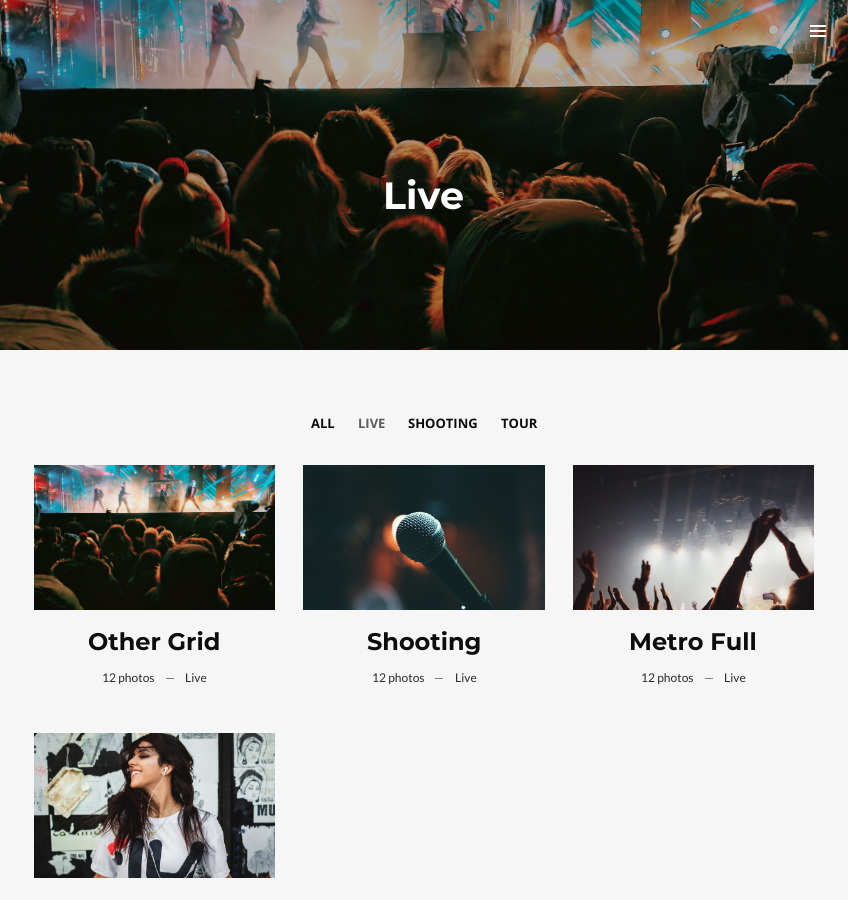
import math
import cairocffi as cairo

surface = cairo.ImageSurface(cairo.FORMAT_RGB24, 848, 900)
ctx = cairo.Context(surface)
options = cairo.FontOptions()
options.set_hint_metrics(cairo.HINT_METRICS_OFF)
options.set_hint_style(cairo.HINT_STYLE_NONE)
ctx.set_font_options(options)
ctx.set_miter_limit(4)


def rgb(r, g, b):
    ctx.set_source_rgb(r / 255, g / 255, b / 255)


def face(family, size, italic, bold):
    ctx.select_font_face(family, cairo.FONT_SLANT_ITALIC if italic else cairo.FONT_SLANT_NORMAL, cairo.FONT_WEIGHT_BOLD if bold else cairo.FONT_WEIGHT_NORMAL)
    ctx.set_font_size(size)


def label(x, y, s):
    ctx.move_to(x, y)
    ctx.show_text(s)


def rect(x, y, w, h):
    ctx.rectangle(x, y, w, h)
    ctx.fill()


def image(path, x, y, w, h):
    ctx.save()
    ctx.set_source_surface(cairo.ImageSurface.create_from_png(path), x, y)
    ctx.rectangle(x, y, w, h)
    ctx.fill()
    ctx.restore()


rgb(255, 255, 255)
ctx.paint()
image('image0.png', 0, 0, 848, 350)
rgb(255, 255, 255)
rect(810, 25, 16, 2)
rect(810, 30, 16, 2)
rect(810, 35, 16, 2)
face('Montserrat', 38, 0, 1)
label(383, 209, 'Live')
rgb(246, 246, 246)
rect(0, 350, 848, 550)
face('Open Sans', 13, 0, 1)
rgb(13, 13, 13)
label(311, 428, 'ALL')
rgb(92, 92, 92)
label(358, 428, 'LIVE')
rgb(13, 13, 13)
label(408, 428, 'SHOOTING')
label(501, 428, 'TOUR')
image('image1.png', 34, 465, 241, 145)
face('Montserrat', 24, 0, 1)
label(88, 650, 'Other Grid')
face('Lato', 12, 0, 0)
rgb(41, 41, 41)
label(102, 682, '12 photos')
rgb(92, 92, 92)
label(165, 682, '—')
rgb(41, 41, 41)
label(185, 682, 'Live')
image('image2.png', 303, 465, 242, 145)
face('Montserrat', 24, 0, 1)
rgb(13, 13, 13)
label(367, 650, 'Shooting')
face('Lato', 12, 0, 0)
rgb(41, 41, 41)
label(372, 682, '12 photos')
rgb(92, 92, 92)
label(434, 682, '—')
rgb(41, 41, 41)
label(455, 682, 'Live')
image('image3.png', 573, 465, 241, 145)
face('Montserrat', 24, 0, 1)
rgb(13, 13, 13)
label(629, 650, 'Metro Full')
face('Lato', 12, 0, 0)
rgb(41, 41, 41)
label(641, 682, '12 photos')
rgb(92, 92, 92)
label(704, 682, '—')
rgb(41, 41, 41)
label(724, 682, 'Live')
image('image4.png', 34, 733, 241, 145)
surface.write_to_png('render.png')
